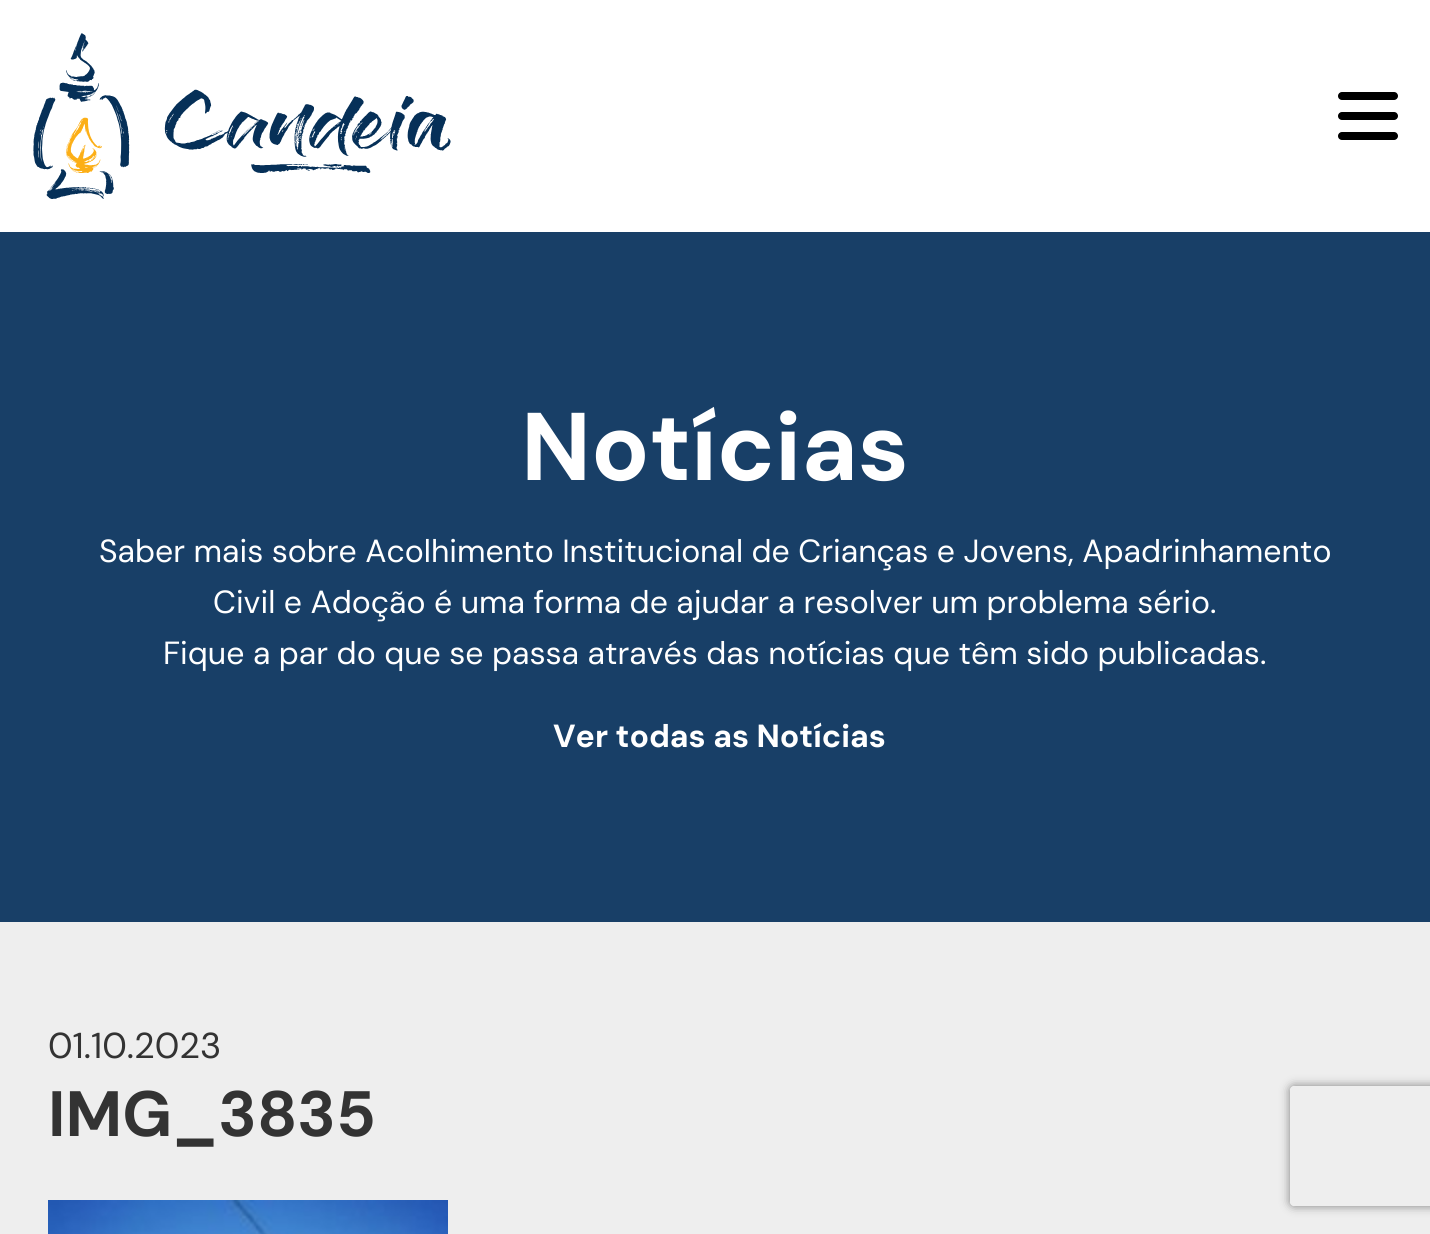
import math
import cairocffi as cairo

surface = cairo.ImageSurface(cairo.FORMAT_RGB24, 1430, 1234)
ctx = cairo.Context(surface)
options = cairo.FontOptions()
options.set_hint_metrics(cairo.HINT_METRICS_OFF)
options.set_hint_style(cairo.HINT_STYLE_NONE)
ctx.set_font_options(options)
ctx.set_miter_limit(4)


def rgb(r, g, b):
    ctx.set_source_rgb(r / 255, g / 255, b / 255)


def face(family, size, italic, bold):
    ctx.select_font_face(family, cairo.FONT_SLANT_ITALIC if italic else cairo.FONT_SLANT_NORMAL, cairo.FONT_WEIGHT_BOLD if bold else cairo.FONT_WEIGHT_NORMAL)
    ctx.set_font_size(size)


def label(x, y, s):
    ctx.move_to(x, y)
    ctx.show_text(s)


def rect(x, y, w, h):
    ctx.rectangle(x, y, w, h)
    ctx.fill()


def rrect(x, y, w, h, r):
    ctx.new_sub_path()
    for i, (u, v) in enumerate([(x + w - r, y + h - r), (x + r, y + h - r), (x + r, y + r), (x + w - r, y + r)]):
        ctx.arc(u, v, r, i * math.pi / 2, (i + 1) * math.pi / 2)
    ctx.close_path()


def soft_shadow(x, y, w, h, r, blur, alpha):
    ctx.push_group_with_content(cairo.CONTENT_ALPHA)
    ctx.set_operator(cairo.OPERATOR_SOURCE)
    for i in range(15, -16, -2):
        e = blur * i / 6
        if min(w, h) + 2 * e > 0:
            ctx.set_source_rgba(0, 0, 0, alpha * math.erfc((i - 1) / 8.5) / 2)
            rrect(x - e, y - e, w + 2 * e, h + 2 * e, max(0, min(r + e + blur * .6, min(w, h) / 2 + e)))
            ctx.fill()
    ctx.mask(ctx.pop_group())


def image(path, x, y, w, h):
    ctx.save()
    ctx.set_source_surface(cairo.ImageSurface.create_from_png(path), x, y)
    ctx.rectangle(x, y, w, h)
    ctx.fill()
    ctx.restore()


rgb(24, 63, 103)
ctx.paint()
rgb(255, 255, 255)
rect(0, 0, 1430, 232)
image('image0.png', 33, 33, 418, 166)
rgb(0, 0, 0)
rrect(1338, 132, 60, 8, 4)
ctx.fill()
rrect(1338, 92, 60, 8, 4)
ctx.fill()
rrect(1338, 112, 60, 8, 4)
ctx.fill()
face('DM Sans', 96, 0, 1)
rgb(255, 255, 255)
label(521, 480, 'Notícias')
face('DM Sans', 32, 0, 0)
label(99, 562, 'Saber mais sobre Acolhimento Institucional de Crianças e Jovens, Apadrinhamento')
label(213, 613, 'Civil e Adoção é uma forma de ajudar a resolver um problema sério.')
label(163, 664, 'Fique a par do que se passa através das notícias que têm sido publicadas.')
face('DM Sans', 32, 0, 1)
label(553, 747, 'Ver todas as Notícias')
rgb(238, 238, 238)
rect(0, 922, 1430, 312)
face('DM Sans', 36, 0, 0)
rgb(51, 51, 51)
label(48, 1058, '01.10.2023')
face('DM Sans', 64, 0, 1)
label(48, 1136, 'IMG_3835')
image('image1.png', 48, 1200, 400, 34)
ctx.save()
ctx.set_fill_rule(cairo.FILL_RULE_EVEN_ODD)
ctx.new_path()
ctx.move_to(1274, 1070)
ctx.line_to(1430, 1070)
ctx.line_to(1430, 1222)
ctx.line_to(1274, 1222)
ctx.close_path()
ctx.move_to(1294, 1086)
ctx.line_to(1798, 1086)
ctx.curve_to(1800, 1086, 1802, 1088, 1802, 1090)
ctx.line_to(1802, 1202)
ctx.curve_to(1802, 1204, 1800, 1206, 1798, 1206)
ctx.line_to(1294, 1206)
ctx.curve_to(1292, 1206, 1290, 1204, 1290, 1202)
ctx.line_to(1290, 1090)
ctx.curve_to(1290, 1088, 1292, 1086, 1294, 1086)
ctx.close_path()
ctx.clip()
rgb(128, 128, 128)
soft_shadow(1290, 1086, 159, 120, 4, 5, 1)
ctx.restore()
surface.write_to_png('render.png')
